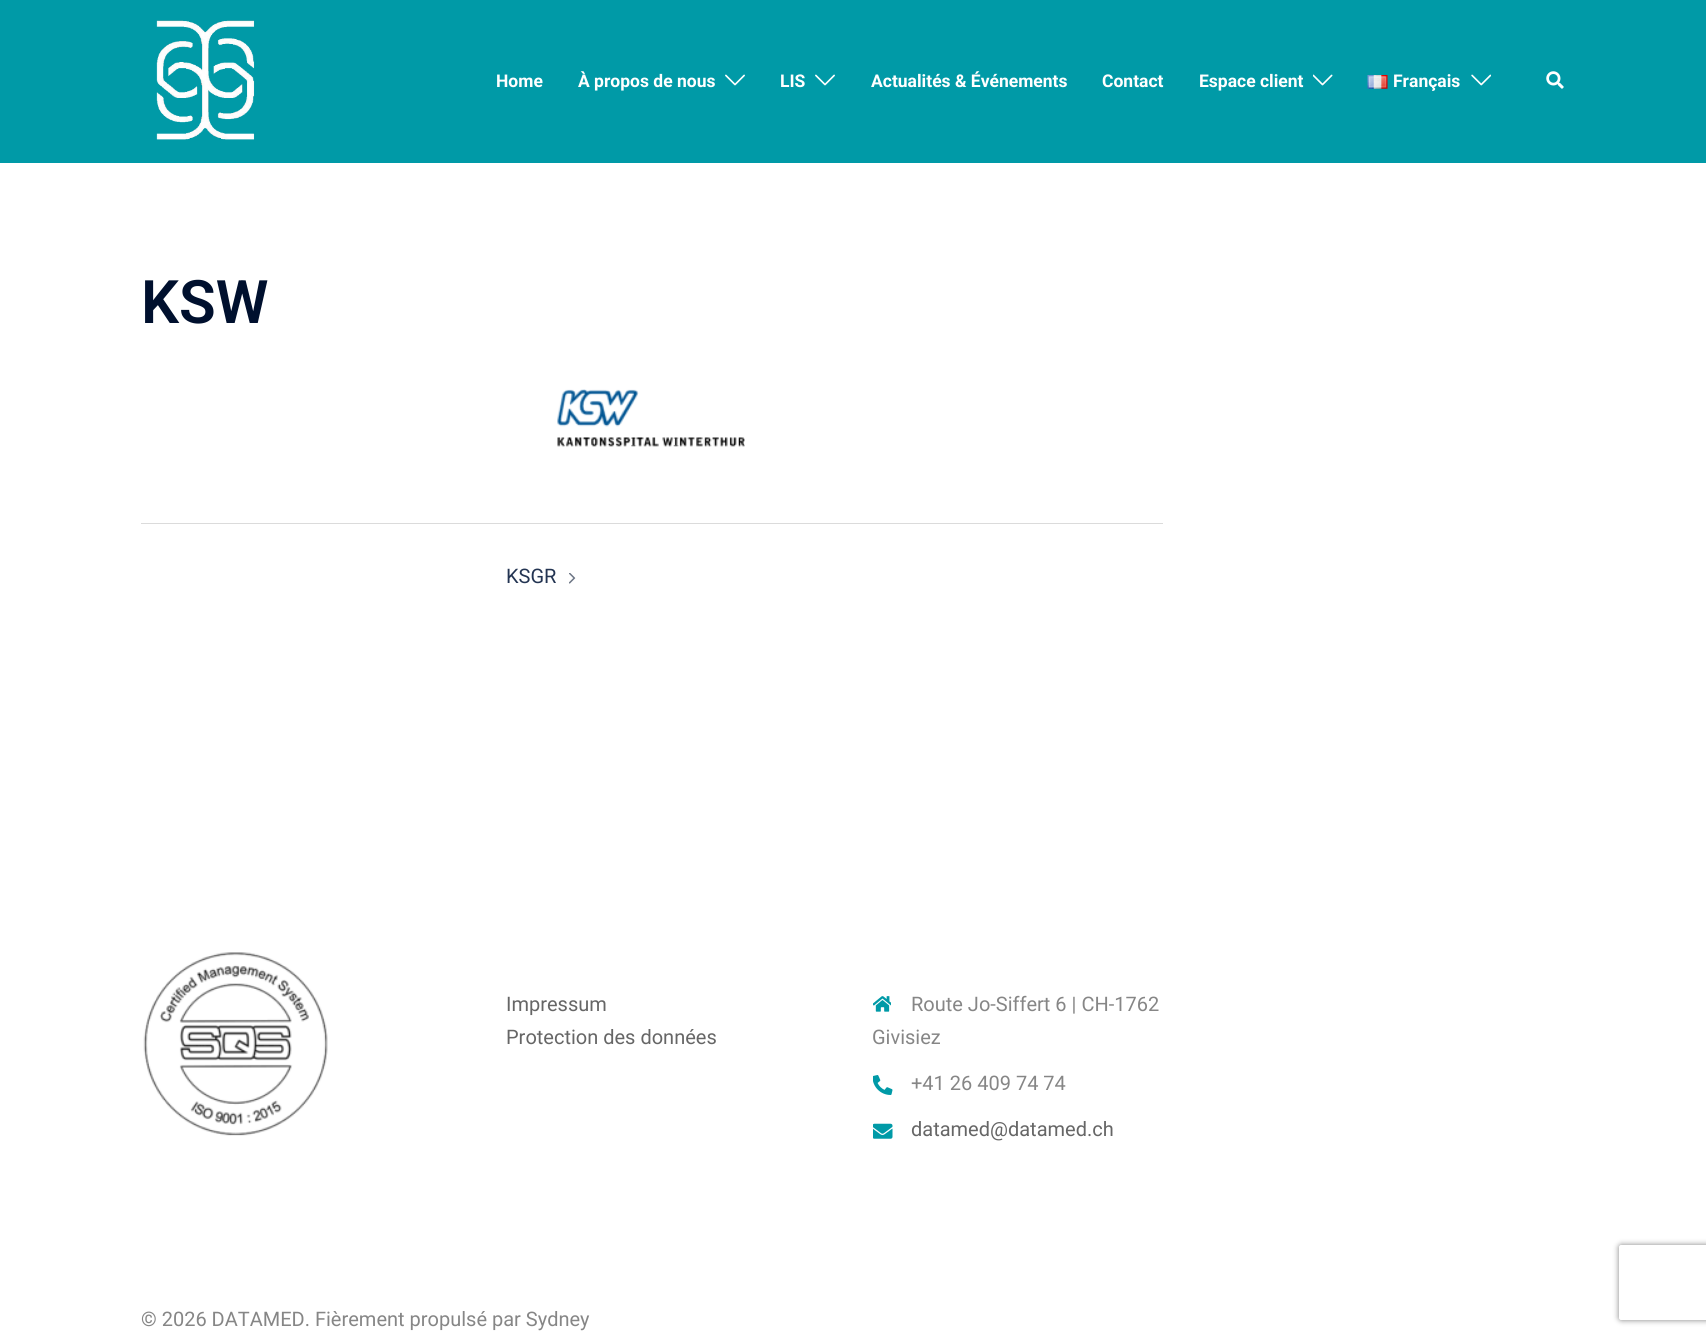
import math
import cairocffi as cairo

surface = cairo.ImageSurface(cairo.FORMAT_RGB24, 1706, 1337)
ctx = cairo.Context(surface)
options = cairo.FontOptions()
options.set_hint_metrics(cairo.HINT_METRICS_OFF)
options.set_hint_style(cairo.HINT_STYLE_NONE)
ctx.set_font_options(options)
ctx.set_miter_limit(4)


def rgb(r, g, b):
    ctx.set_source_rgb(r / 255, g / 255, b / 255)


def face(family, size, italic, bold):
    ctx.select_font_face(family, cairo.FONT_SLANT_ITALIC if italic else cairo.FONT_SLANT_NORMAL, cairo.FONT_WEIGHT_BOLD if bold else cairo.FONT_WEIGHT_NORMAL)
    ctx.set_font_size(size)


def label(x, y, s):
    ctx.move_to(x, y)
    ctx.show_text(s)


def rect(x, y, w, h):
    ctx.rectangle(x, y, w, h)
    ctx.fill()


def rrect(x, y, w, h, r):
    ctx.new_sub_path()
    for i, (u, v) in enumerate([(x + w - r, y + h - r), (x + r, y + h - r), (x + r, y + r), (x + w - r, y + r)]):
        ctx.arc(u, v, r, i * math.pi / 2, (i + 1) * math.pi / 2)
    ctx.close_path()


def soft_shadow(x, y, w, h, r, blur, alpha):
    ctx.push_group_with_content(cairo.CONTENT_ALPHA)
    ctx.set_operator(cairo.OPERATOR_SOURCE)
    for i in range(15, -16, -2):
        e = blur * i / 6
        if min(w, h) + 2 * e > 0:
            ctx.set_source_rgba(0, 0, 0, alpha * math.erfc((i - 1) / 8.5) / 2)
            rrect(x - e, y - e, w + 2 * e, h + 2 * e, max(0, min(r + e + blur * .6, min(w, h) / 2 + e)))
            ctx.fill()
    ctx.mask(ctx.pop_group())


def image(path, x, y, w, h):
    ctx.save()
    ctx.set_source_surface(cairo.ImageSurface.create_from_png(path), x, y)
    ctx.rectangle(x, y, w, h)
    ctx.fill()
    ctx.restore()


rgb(255, 255, 255)
ctx.paint()
rgb(0, 154, 167)
rect(0, 0, 1706, 163)
image('image0.png', 156, 20, 99, 120)
face('Roboto', 17.5, 0, 1)
rgb(255, 255, 255)
label(496, 87, 'Home')
label(578, 87, 'À propos de nous')
image('image1.png', 725, 74, 20, 12)
label(780, 87, 'LIS')
image('image1.png', 815, 74, 20, 12)
label(871, 87, 'Actualités & Événements')
label(1102, 87, 'Contact')
label(1199, 87, 'Espace client')
image('image2.png', 1313, 74, 20, 12)
image('image3.png', 1367, 75, 21, 14)
label(1393, 87, 'Français')
image('image4.png', 1471, 74, 20, 12)
image('image5.png', 1546, 71, 18, 18)
face('Roboto SemiBold', 60, 0, 0)
rgb(0, 16, 46)
label(141, 323, 'KSW')
image('image6.png', 557, 389, 188, 58)
rgb(219, 219, 219)
rect(141, 523, 1022, 1)
face('Roboto', 20, 0, 0)
rgb(35, 52, 82)
label(506, 583, 'KSGR')
image('image7.png', 569, 573, 7, 11)
image('image8.png', 143, 952, 185, 184)
rgb(102, 102, 102)
label(506, 1011, 'Impressum')
label(506, 1044, 'Protection des données')
image('image9.png', 873, 996, 18, 16)
rgb(134, 134, 134)
label(911, 1011, 'Route Jo-Siffert 6 | CH-1762')
label(872, 1044, 'Givisiez')
image('image10.png', 873, 1075, 20, 20)
label(911, 1090, '+41 26 409 74 74')
image('image11.png', 873, 1123, 20, 16)
rgb(102, 102, 102)
label(911, 1136, 'datamed@datamed.ch')
rgb(134, 134, 134)
label(141, 1326, '© 2026 DATAMED. Fièrement propulsé par Sydney')
ctx.save()
ctx.set_fill_rule(cairo.FILL_RULE_EVEN_ODD)
ctx.new_path()
ctx.move_to(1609, 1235)
ctx.line_to(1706, 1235)
ctx.line_to(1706, 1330)
ctx.line_to(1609, 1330)
ctx.close_path()
ctx.move_to(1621.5, 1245)
ctx.line_to(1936.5, 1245)
ctx.curve_to(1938, 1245, 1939, 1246, 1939, 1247.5)
ctx.line_to(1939, 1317.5)
ctx.curve_to(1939, 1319, 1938, 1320, 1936.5, 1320)
ctx.line_to(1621.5, 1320)
ctx.curve_to(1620, 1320, 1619, 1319, 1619, 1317.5)
ctx.line_to(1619, 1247.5)
ctx.curve_to(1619, 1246, 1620, 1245, 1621.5, 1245)
ctx.close_path()
ctx.clip()
rgb(128, 128, 128)
soft_shadow(1619, 1245, 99, 75, 2.5, 3, 1)
ctx.restore()
surface.write_to_png('render.png')
